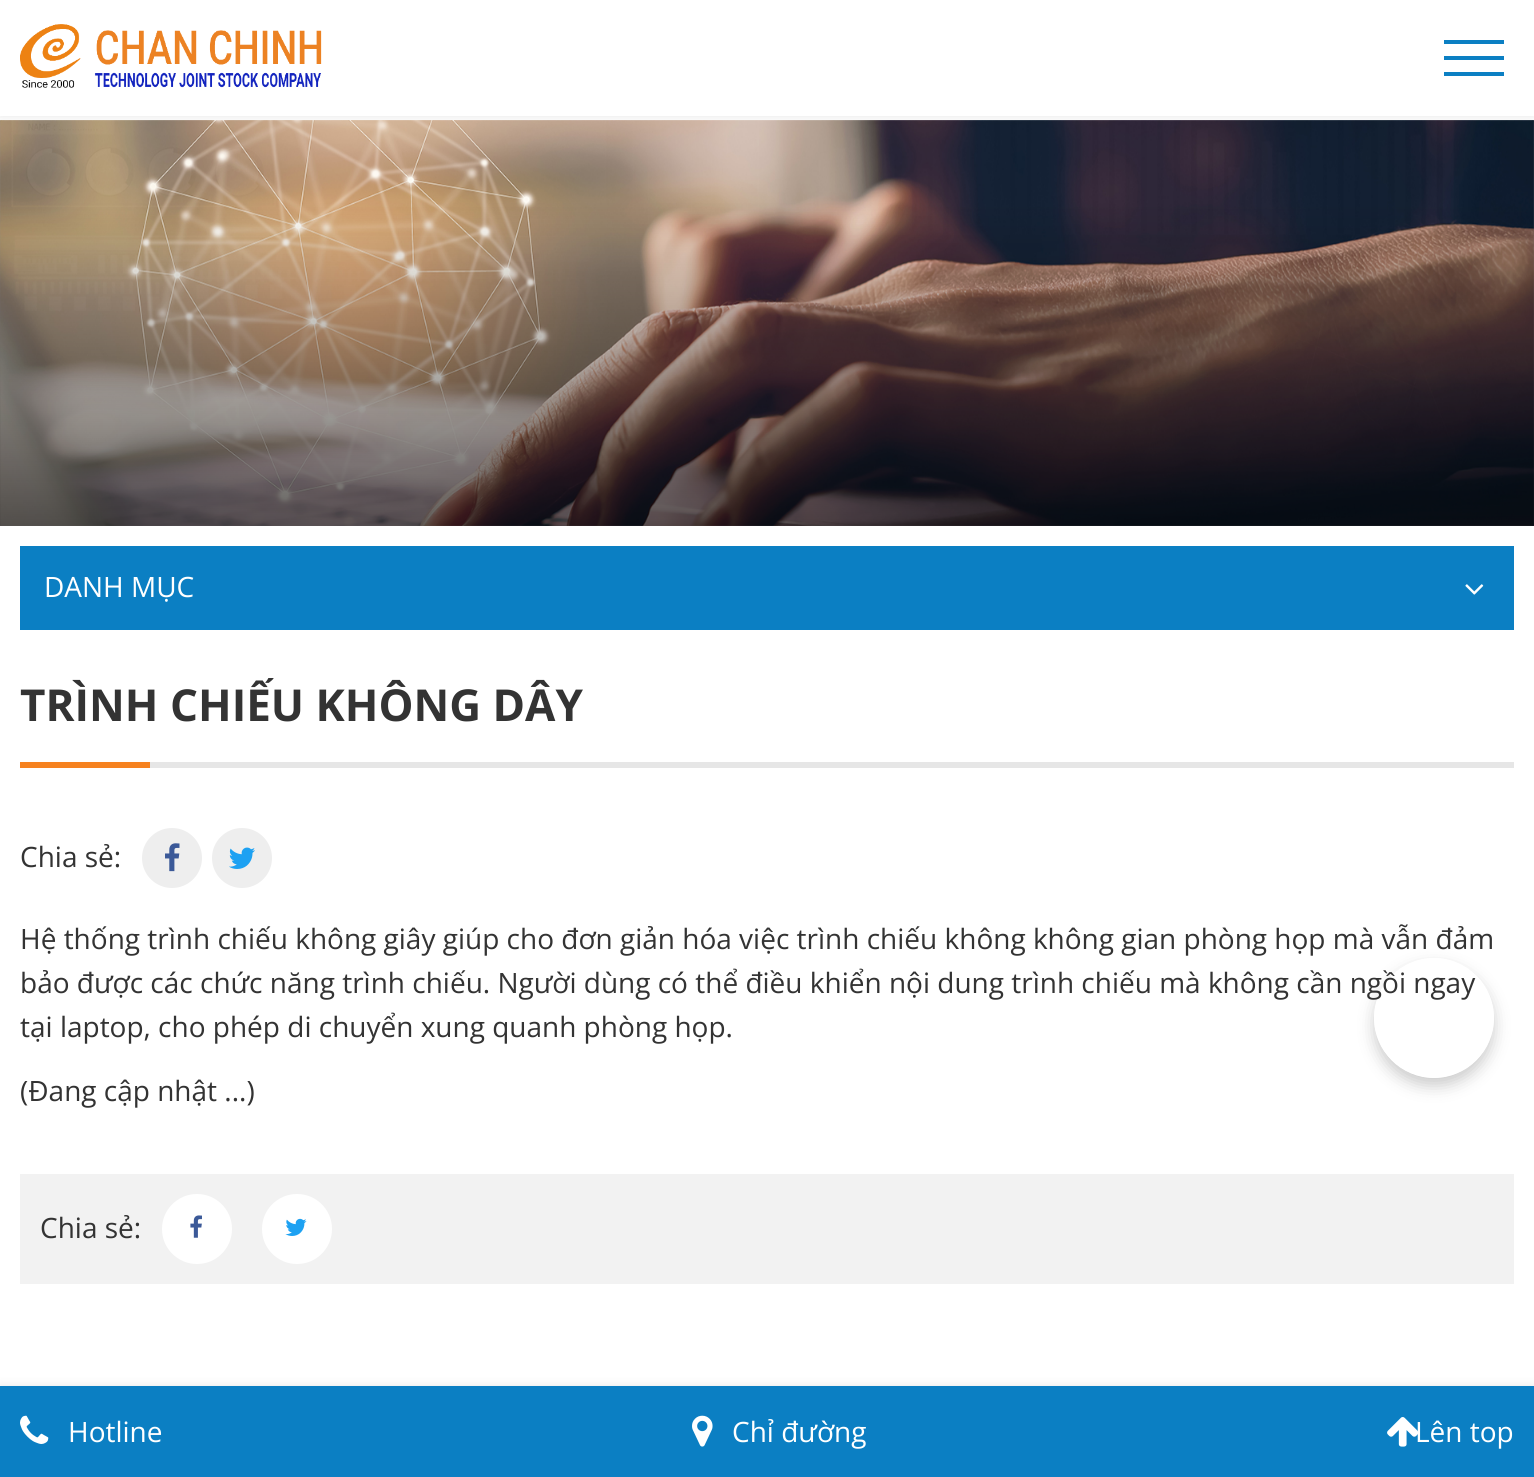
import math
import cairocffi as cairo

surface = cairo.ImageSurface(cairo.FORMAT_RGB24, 1534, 1477)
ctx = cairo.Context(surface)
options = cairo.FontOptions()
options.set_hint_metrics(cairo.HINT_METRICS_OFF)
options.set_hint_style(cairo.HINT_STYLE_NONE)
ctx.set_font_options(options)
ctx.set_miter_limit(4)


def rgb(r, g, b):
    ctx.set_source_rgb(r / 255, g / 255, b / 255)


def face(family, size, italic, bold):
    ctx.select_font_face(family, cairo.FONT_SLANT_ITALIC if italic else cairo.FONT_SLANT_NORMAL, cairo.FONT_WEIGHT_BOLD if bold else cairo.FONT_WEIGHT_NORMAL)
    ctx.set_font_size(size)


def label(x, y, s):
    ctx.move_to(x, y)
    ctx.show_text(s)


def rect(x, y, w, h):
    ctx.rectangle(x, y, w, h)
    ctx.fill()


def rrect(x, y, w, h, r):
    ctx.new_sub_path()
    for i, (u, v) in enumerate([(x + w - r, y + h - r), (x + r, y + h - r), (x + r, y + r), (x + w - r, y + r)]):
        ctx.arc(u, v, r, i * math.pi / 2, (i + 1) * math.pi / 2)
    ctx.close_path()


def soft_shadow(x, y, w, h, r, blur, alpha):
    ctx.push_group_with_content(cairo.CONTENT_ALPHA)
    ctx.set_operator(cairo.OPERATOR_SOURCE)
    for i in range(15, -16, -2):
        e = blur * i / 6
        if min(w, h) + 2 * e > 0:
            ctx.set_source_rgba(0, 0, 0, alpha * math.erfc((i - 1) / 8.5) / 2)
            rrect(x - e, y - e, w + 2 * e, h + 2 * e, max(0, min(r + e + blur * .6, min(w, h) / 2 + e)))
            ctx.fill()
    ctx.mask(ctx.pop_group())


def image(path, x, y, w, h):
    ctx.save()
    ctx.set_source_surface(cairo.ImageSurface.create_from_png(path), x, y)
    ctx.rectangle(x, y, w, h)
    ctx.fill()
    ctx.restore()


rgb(255, 255, 255)
ctx.paint()
image('image1.png', 0, 120, 1534, 406)
ctx.save()
ctx.rectangle(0, 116, 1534, 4)
ctx.clip()
rgb(0, 0, 0)
soft_shadow(0, 0, 1534, 116, 0, 5, 0.1)
ctx.restore()
image('image0.png', 20, 24, 302, 64)
rgb(11, 127, 195)
rect(1444, 56, 60, 4)
rect(1444, 40, 60, 4)
rect(1444, 72, 60, 4)
rect(20, 546, 1494, 84)
face('Open Sans', 28, 0, 0)
rgb(255, 255, 255)
label(44, 597, 'DANH MỤC')
image('image2.png', 1465, 584, 19, 11)
rgb(230, 230, 230)
rect(150, 762, 1364, 6)
face('Open Sans', 44, 0, 1)
rgb(51, 51, 51)
label(20, 721, 'TRÌNH CHIẾU KHÔNG DÂY')
rgb(246, 130, 31)
rect(20, 762, 130, 6)
face('Open Sans', 28, 0, 0)
rgb(51, 51, 51)
label(20, 867, 'Chia sẻ:')
rgb(238, 238, 238)
ctx.new_path()
ctx.arc(172, 858, 30, 0, 2 * math.pi)
ctx.fill()
image('image3.png', 165, 843, 15, 29)
ctx.arc(242, 858, 30, 0, 2 * math.pi)
ctx.fill()
image('image4.png', 229, 847, 26, 22)
rgb(51, 51, 51)
label(20, 949, 'Hệ thống trình chiếu không giây giúp cho đơn giản hóa việc trình chiếu không không gian phòng họp mà vẫn đảm')
label(20, 993, 'bảo được các chức năng trình chiếu. Người dùng có thể điều khiển nội dung trình chiếu mà không cần ngồi ngay')
label(20, 1037, 'tại laptop, cho phép di chuyển xung quanh phòng họp.')
label(20, 1101, '(Đang cập nhật ...)')
rgb(242, 242, 242)
rect(20, 1174, 1494, 110)
rgb(51, 51, 51)
label(40, 1238, 'Chia sẻ:')
rgb(255, 255, 255)
ctx.new_path()
ctx.arc(197, 1229, 35, 0, 2 * math.pi)
ctx.fill()
image('image5.png', 190, 1215, 12, 23)
ctx.arc(297, 1229, 35, 0, 2 * math.pi)
ctx.fill()
image('image6.png', 285, 1218, 22, 18)
rgb(0, 0, 0)
soft_shadow(0, 1386, 1534, 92, 0, 5, 0.1)
rgb(11, 127, 195)
rect(0, 1386, 1534, 91)
image('image7.png', 20, 1415, 29, 29)
rgb(255, 255, 255)
label(68, 1442, 'Hotline')
image('image8.png', 692, 1415, 21, 32)
label(732, 1442, 'Chỉ đường')
label(1415, 1442, 'Lên top')
image('image9.png', 1387, 1417, 31, 30)
ctx.save()
ctx.set_fill_rule(cairo.FILL_RULE_EVEN_ODD)
ctx.new_path()
ctx.move_to(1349, 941)
ctx.line_to(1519, 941)
ctx.line_to(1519, 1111)
ctx.line_to(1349, 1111)
ctx.close_path()
ctx.move_to(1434, 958)
ctx.curve_to(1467, 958, 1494, 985, 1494, 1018)
ctx.curve_to(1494, 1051, 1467, 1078, 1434, 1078)
ctx.curve_to(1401, 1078, 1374, 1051, 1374, 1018)
ctx.curve_to(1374, 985, 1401, 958, 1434, 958)
ctx.close_path()
ctx.clip()
rgb(0, 0, 0)
soft_shadow(1374, 966, 120, 120, 60, 8, 0.2)
ctx.restore()
surface.write_to_png('render.png')
